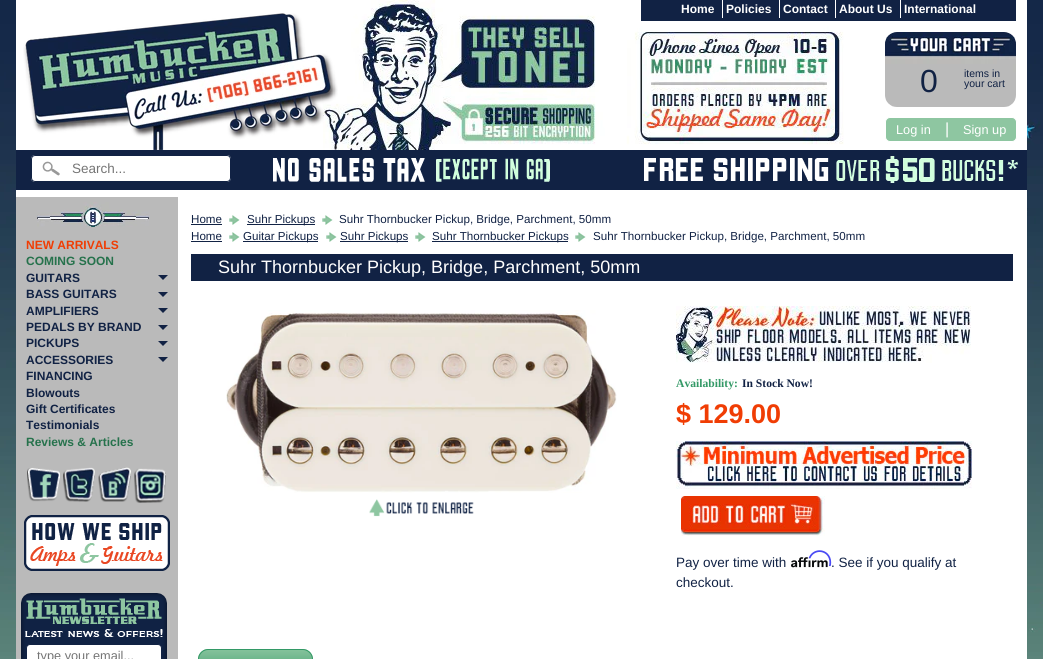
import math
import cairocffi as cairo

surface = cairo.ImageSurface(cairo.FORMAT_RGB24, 1043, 659)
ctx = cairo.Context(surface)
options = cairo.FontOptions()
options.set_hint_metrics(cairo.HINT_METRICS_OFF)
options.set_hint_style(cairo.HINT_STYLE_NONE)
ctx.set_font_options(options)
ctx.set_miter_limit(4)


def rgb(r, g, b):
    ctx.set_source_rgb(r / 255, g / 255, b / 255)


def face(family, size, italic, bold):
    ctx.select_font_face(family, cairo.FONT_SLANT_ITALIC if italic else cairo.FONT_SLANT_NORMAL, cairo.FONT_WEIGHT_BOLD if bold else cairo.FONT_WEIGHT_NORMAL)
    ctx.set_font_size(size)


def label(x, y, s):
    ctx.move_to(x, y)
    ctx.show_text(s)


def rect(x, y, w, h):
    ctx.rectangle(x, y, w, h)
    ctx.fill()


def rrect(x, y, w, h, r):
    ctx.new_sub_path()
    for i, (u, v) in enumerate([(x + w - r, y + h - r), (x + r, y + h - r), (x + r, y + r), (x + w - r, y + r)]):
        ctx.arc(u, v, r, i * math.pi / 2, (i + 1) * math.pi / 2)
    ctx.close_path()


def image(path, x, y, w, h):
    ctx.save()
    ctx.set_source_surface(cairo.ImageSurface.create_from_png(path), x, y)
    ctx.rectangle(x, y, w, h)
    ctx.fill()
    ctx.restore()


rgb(255, 255, 255)
ctx.paint()
image('image0.png', 0, 0, 1043, 659)
rgb(255, 255, 255)
rect(16, 0, 1011, 197)
image('image1.png', 323, 0, 521, 150)
rgb(17, 34, 68)
rect(641, 0, 375, 21)
face('Liberation Sans', 12, 0, 1)
rgb(255, 255, 255)
label(681, 13, 'Home')
rect(722, 0, 1, 18)
label(726, 13, 'Policies')
rect(779, 0, 1, 18)
label(783, 13, 'Contact')
rect(835, 0, 1, 18)
label(839, 13, 'About Us')
rect(900, 0, 1, 18)
label(904, 13, 'International')
image('image2.png', 23, 13, 315, 137)
image('image3.png', 885, 32, 131, 75)
face('Liberation Sans', 32, 0, 0)
rgb(17, 34, 68)
label(920, 92, '0')
face('Liberation Sans', 10.5, 0, 0)
label(964, 77, 'items in')
label(964, 87, 'your cart')
rgb(142, 198, 161)
rrect(885.5, 117.5, 131, 24, 4.5)
ctx.fill_preserve()
rgb(255, 255, 255)
ctx.set_line_width(1)
ctx.stroke()
face('Liberation Sans', 12.75, 0, 0)
label(896, 134, 'Log in')
face('Liberation Sans', 16, 0, 0)
label(945, 134, '|')
face('Liberation Sans', 12.75, 0, 0)
label(963, 134, 'Sign up')
rgb(17, 34, 68)
rect(16, 150, 1011, 40)
image('image4.png', 273, 156, 745, 27)
rgb(255, 255, 255)
rrect(31, 155, 200, 27, 4)
ctx.fill()
image('image5.png', 42, 161, 18, 15)
rrect(31.5, 155.5, 199, 26, 3.5)
rgb(17, 34, 68)
ctx.stroke()
face('Liberation Sans', 13.5, 0, 0)
rgb(117, 117, 117)
label(72, 173, 'Search...')
rgb(255, 255, 255)
rect(178, 197, 849, 462)
rgb(186, 186, 186)
rect(16, 197, 162, 462)
image('image6.png', 37, 202, 113, 25)
face('Liberation Sans', 12, 0, 1)
rgb(240, 61, 4)
label(26, 249, 'NEW ARRIVALS')
rgb(38, 114, 76)
label(26, 265, 'COMING SOON')
rgb(17, 34, 68)
label(26, 282, 'GUITARS')
ctx.new_path()
ctx.move_to(158, 275)
ctx.line_to(168, 275)
ctx.line_to(163, 280)
ctx.close_path()
ctx.fill()
label(26, 298, 'BASS GUITARS')
ctx.new_path()
ctx.move_to(158, 292)
ctx.line_to(168, 292)
ctx.line_to(163, 297)
ctx.close_path()
ctx.fill()
label(26, 315, 'AMPLIFIERS')
ctx.new_path()
ctx.move_to(158, 308)
ctx.line_to(168, 308)
ctx.line_to(163, 313)
ctx.close_path()
ctx.fill()
label(26, 331, 'PEDALS BY BRAND')
ctx.new_path()
ctx.move_to(158, 325)
ctx.line_to(168, 325)
ctx.line_to(163, 330)
ctx.close_path()
ctx.fill()
label(26, 347, 'PICKUPS')
ctx.new_path()
ctx.move_to(158, 341)
ctx.line_to(168, 341)
ctx.line_to(163, 346)
ctx.close_path()
ctx.fill()
label(26, 364, 'ACCESSORIES')
ctx.new_path()
ctx.move_to(158, 357)
ctx.line_to(168, 357)
ctx.line_to(163, 362)
ctx.close_path()
ctx.fill()
label(26, 380, 'FINANCING')
label(26, 397, 'Blowouts')
label(26, 413, 'Gift Certificates')
label(26, 429, 'Testimonials')
rgb(38, 114, 76)
label(26, 446, 'Reviews & Articles')
image('image7.png', 27, 468, 33, 34)
image('image8.png', 63, 467, 32, 35)
image('image9.png', 98, 467, 33, 35)
image('image10.png', 134, 468, 32, 35)
image('image11.png', 24, 515, 146, 56)
image('image12.png', 21, 593, 146, 66)
rgb(255, 255, 255)
rrect(26.5, 644.5, 135, 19, 3.5)
ctx.fill_preserve()
rgb(17, 34, 68)
ctx.stroke()
face('Liberation Sans', 12.75, 0, 0)
rgb(117, 117, 117)
label(37, 660, 'type your email...')
face('Liberation Sans', 11.6, 0, 0)
rgb(17, 34, 68)
label(191, 223, 'Home')
rect(191, 224, 31, 1)
image('image13.png', 229, 215, 12, 10)
rect(247, 224, 68, 1)
label(247, 223, 'Suhr Pickups')
image('image13.png', 322, 215, 12, 10)
label(339, 223, 'Suhr Thornbucker Pickup, Bridge, Parchment, 50mm')
label(191, 240, 'Home')
rect(191, 241, 31, 1)
image('image13.png', 229, 232, 12, 10)
rect(243, 241, 75, 1)
label(243, 240, 'Guitar Pickups')
image('image13.png', 326, 232, 12, 10)
rect(340, 241, 68, 1)
label(340, 240, 'Suhr Pickups')
image('image13.png', 415, 232, 12, 10)
rect(432, 241, 136, 1)
label(432, 240, 'Suhr Thornbucker Pickups')
image('image13.png', 575, 232, 12, 10)
label(593, 240, 'Suhr Thornbucker Pickup, Bridge, Parchment, 50mm')
rect(191, 254, 822, 27)
face('Liberation Sans', 18, 0, 0)
rgb(255, 255, 255)
label(218, 273, 'Suhr Thornbucker Pickup, Bridge, Parchment, 50mm')
image('image14.png', 226, 310, 391, 183)
image('image15.png', 369, 499, 105, 18)
image('image16.png', 676, 306, 295, 57)
face('Liberation Serif', 11.6, 0, 1)
rgb(51, 153, 102)
label(676, 387, 'Availability:')
rgb(17, 34, 68)
label(742, 387, 'In Stock Now!')
face('Liberation Sans', 27, 0, 1)
rgb(240, 61, 4)
label(676, 423, '$ 129.00')
image('image17.png', 676, 441, 296, 48)
image('image18.png', 681, 496, 144, 40)
face('Liberation Sans', 13.5, 0, 0)
rgb(17, 34, 68)
label(676, 567, 'Pay over time with')
image('image20.png', 791, 557, 37, 11)
image('image19.png', 808, 550, 24, 17)
label(831, 567, '. See if you qualify at')
label(676, 587, 'checkout.')
image('image21.png', 198, 649, 115, 10)
ctx.new_path()
ctx.move_to(208, 649.5)
ctx.line_to(303, 649.5)
ctx.curve_to(308, 649.5, 312.5, 654, 312.5, 659)
ctx.line_to(312.5, 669.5)
ctx.line_to(198.5, 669.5)
ctx.line_to(198.5, 659)
ctx.curve_to(198.5, 654, 203, 649.5, 208, 649.5)
ctx.close_path()
rgb(51, 153, 102)
ctx.stroke()
surface.write_to_png('render.png')
